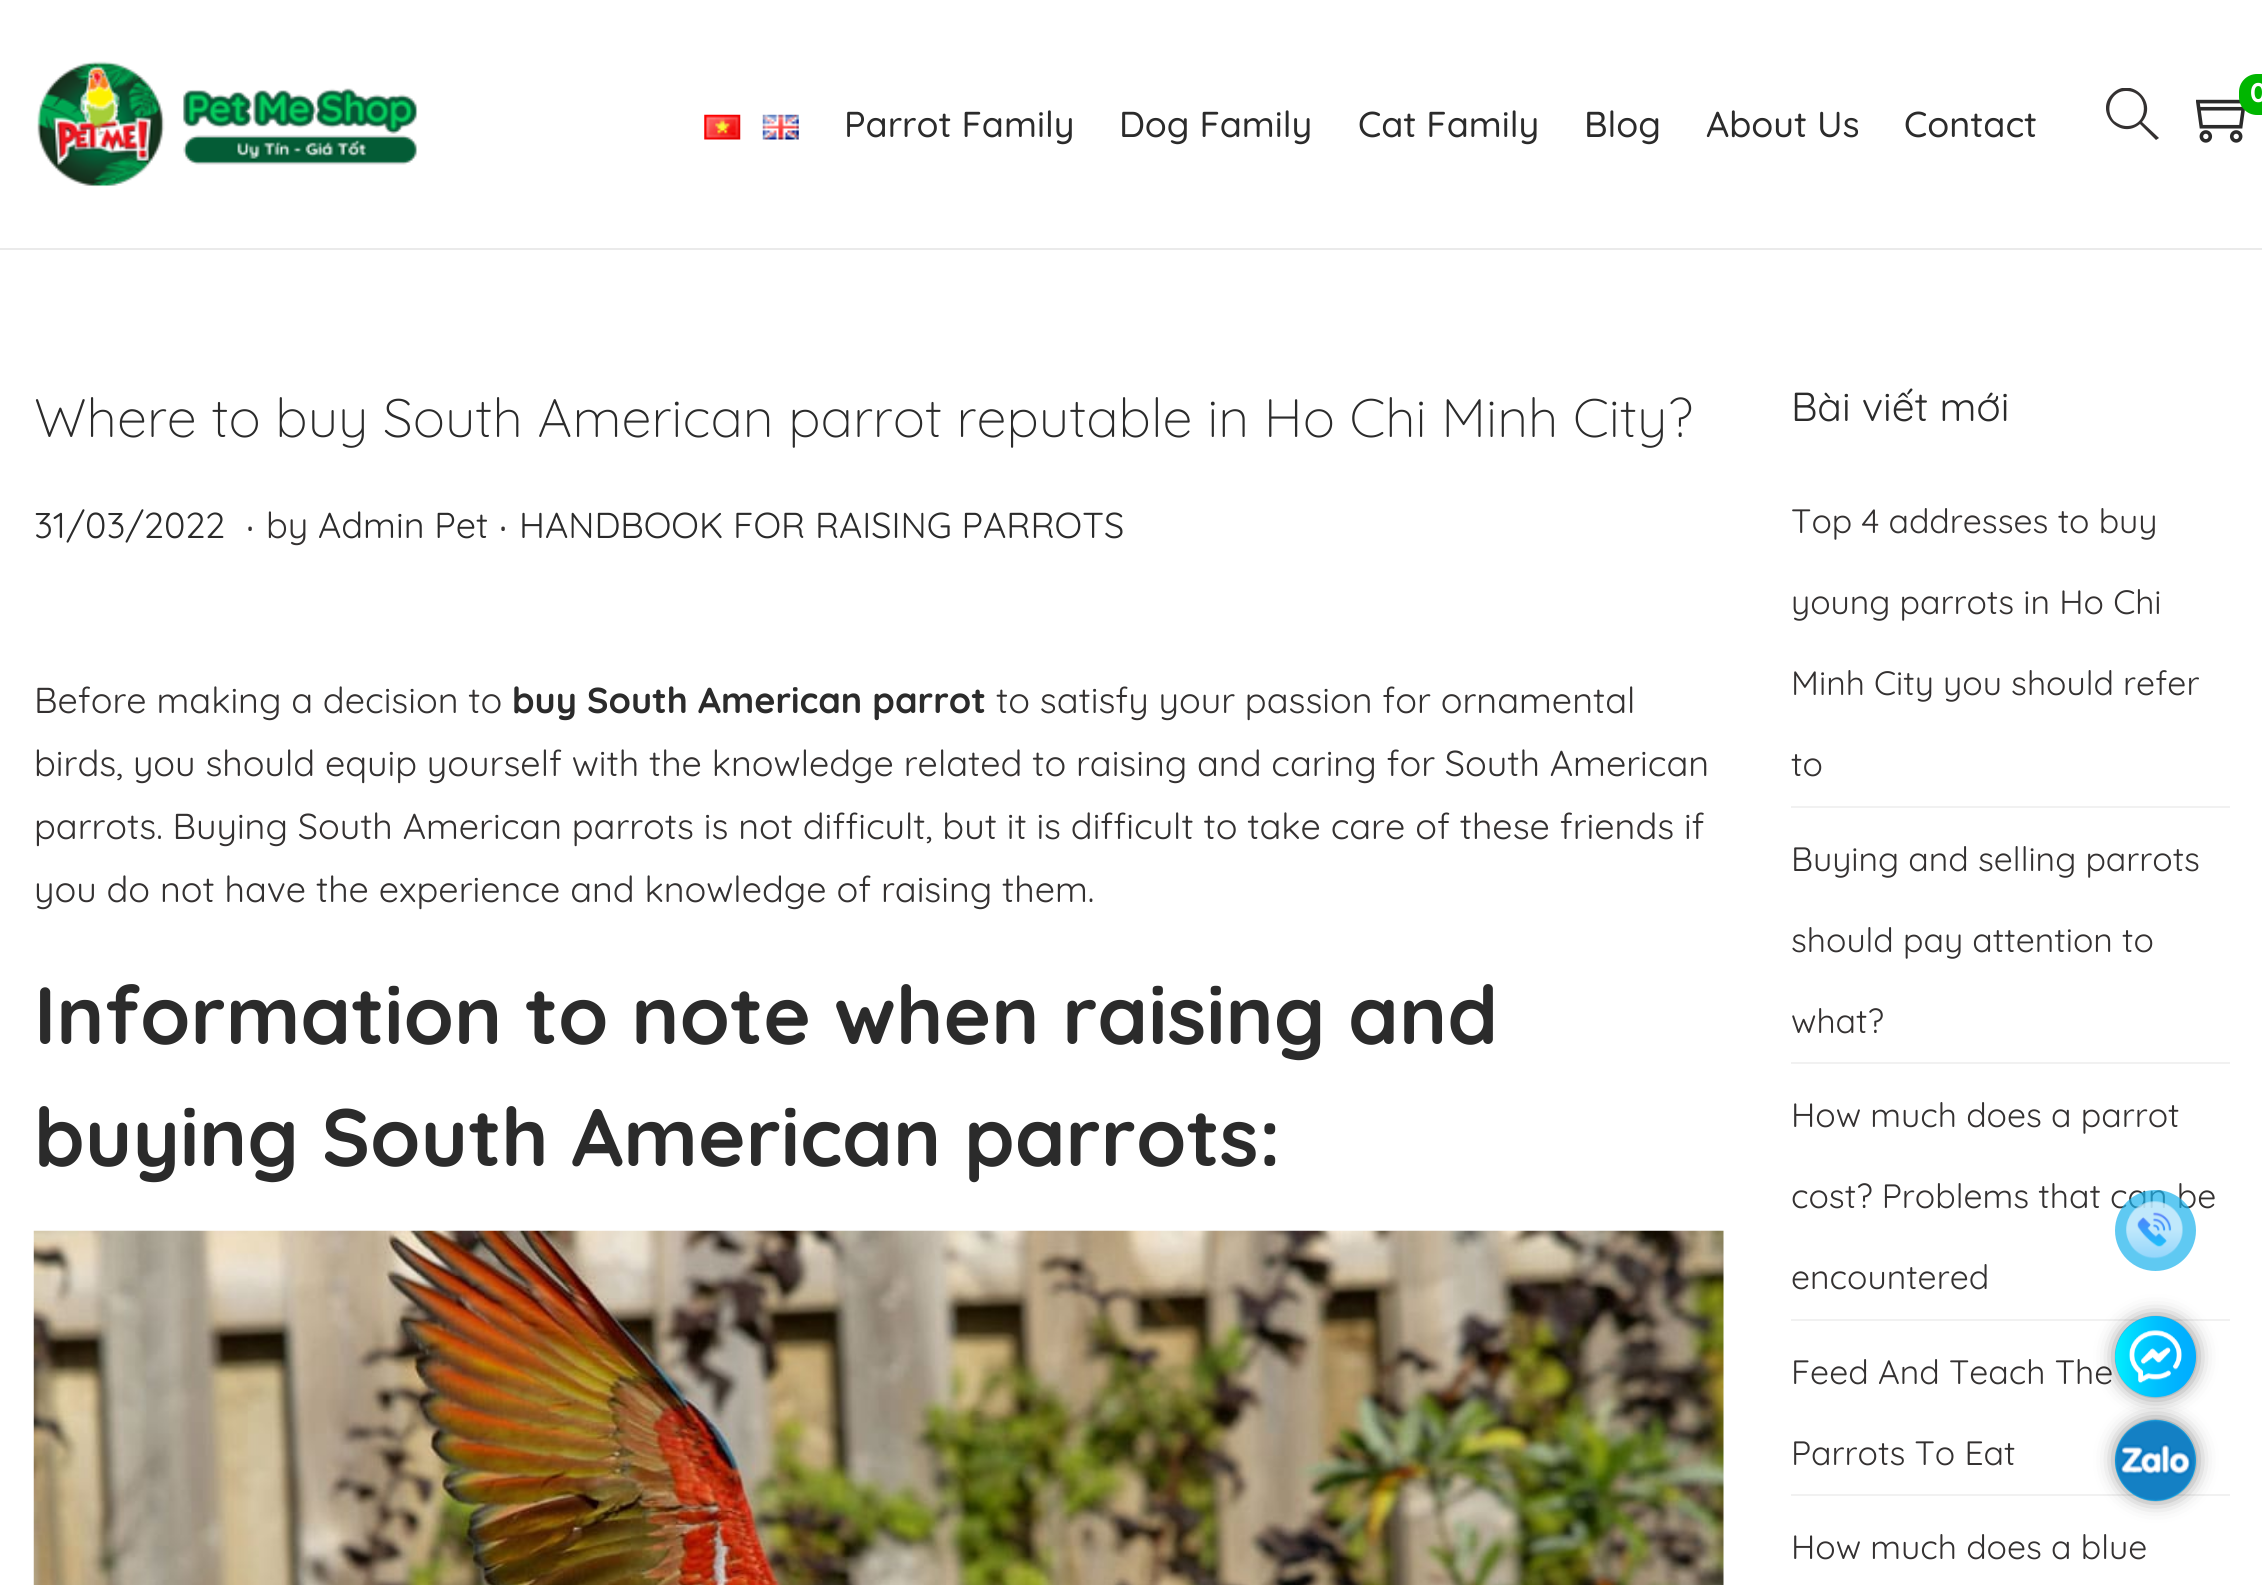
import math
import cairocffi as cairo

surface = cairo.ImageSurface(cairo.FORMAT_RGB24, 2262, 1585)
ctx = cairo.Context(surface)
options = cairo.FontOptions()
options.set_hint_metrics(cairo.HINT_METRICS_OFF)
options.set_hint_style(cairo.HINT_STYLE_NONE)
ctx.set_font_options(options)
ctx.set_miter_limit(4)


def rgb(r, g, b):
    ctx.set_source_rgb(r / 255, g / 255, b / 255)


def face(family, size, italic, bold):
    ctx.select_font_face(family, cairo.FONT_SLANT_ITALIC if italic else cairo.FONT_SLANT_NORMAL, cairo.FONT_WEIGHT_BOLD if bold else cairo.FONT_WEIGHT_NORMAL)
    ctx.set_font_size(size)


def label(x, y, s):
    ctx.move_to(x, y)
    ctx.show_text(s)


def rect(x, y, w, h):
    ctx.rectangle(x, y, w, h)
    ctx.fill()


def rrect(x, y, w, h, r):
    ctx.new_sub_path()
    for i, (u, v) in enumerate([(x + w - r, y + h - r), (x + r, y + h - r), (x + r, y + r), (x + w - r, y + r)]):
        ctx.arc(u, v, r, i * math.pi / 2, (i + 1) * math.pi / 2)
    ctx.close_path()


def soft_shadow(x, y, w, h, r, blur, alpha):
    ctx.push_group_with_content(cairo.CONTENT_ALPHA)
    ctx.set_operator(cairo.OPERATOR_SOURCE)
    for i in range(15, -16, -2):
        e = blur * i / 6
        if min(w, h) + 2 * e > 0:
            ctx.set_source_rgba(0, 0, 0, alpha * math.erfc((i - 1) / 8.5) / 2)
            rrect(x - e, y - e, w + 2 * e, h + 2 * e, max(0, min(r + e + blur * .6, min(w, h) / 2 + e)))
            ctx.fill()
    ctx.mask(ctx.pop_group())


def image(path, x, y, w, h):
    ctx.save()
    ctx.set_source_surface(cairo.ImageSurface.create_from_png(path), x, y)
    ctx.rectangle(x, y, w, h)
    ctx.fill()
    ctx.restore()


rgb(255, 255, 255)
ctx.paint()
rgb(234, 234, 234)
rect(0, 248, 2262, 2)
image('image0.png', 37, 61, 381, 126)
image('image1.png', 704, 114, 37, 26)
image('image2.png', 762, 114, 37, 26)
face('Quicksand Medium', 36, 0, 0)
rgb(43, 43, 43)
label(844, 137, 'Parrot Family')
label(1119, 137, 'Dog Family')
label(1358, 137, 'Cat Family')
label(1584, 137, 'Blog')
label(1706, 137, 'About Us')
label(1904, 137, 'Contact')
ctx.save()
ctx.rectangle(2106, 88, 54, 54)
ctx.clip()
rgb(52, 49, 49)
ctx.new_path()
ctx.move_to(2159, 138)
ctx.line_to(2142, 122)
ctx.curve_to(2159, 102, 2130, 75, 2112, 94)
ctx.curve_to(2094, 112, 2120, 141, 2140, 124)
ctx.line_to(2156, 140)
ctx.close_path()
ctx.move_to(2127, 126)
ctx.curve_to(2122, 126, 2118, 124, 2114, 121)
ctx.curve_to(2104, 110, 2111, 90, 2127, 91)
ctx.curve_to(2150, 92, 2149, 126, 2127, 126)
ctx.close_path()
ctx.fill()
ctx.restore()
image('image3.png', 2196, 99, 49, 44)
rgb(0, 182, 0)
rrect(2239, 74, 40, 41, 18)
ctx.fill()
face('Quicksand', 27, 0, 1)
rgb(255, 255, 255)
label(2250, 102, '0')
face('Quicksand Light', 54, 0, 0)
rgb(43, 43, 43)
label(34, 437, 'Where to buy South American parrot reputable in Ho Chi Minh City?')
face('Quicksand', 36, 0, 0)
label(34, 538, '31/03/2022')
face('Quicksand', 45, 0, 0)
rgb(52, 49, 49)
label(246, 531, '.')
face('Quicksand', 36, 0, 0)
label(266, 538, 'by')
rgb(43, 43, 43)
label(318, 538, 'Admin Pet')
face('Quicksand', 45, 0, 0)
rgb(52, 49, 49)
label(499, 531, '.')
face('Quicksand', 36, 0, 0)
rgb(43, 43, 43)
label(519, 538, 'HANDBOOK FOR RAISING PARROTS')
rgb(52, 49, 49)
label(34, 713, 'Before making a decision to')
face('Quicksand', 36, 0, 1)
rgb(43, 43, 43)
label(512, 713, 'buy South American parrot')
face('Quicksand', 36, 0, 0)
rgb(52, 49, 49)
label(996, 713, 'to satisfy your passion for ornamental')
label(34, 776, 'birds, you should equip yourself with the knowledge related to raising and caring for South American')
label(34, 839, 'parrots. Buying South American parrots is not difficult, but it is difficult to take care of these friends if')
label(34, 902, 'you do not have the experience and knowledge of raising them.')
face('Quicksand', 81, 0, 1)
rgb(43, 43, 43)
label(34, 1044, 'Information to note when raising and')
label(34, 1166, 'buying South American parrots:')
image('image4.png', 33, 1230, 1691, 355)
face('Quicksand', 40.5, 0, 0)
label(1791, 421, 'Bài viết mới')
rgb(241, 241, 241)
rect(1791, 806, 439, 2)
face('Quicksand', 33.75, 0, 0)
rgb(52, 49, 49)
label(1791, 533, 'Top 4 addresses to buy')
label(1791, 614, 'young parrots in Ho Chi')
label(1791, 695, 'Minh City you should refer')
label(1791, 776, 'to')
rgb(241, 241, 241)
rect(1791, 1062, 439, 2)
rgb(52, 49, 49)
label(1791, 871, 'Buying and selling parrots')
label(1791, 952, 'should pay attention to')
label(1791, 1033, 'what?')
rgb(241, 241, 241)
rect(1791, 1319, 439, 2)
rgb(52, 49, 49)
label(1791, 1127, 'How much does a parrot')
label(1791, 1208, 'cost? Problems that can be')
label(1791, 1289, 'encountered')
rgb(241, 241, 241)
rect(1791, 1494, 439, 2)
rgb(52, 49, 49)
label(1791, 1384, 'Feed And Teach The')
label(1791, 1465, 'Parrots To Eat')
label(1791, 1559, 'How much does a blue')
ctx.set_source_rgba(0.11, 0.698, 0.929, 0.7)
ctx.new_path()
ctx.arc(2155.5, 1230.5, 40.5, 0, 2 * math.pi)
ctx.fill()
image('image5.png', 2126, 1201, 57, 58)
rgb(0, 0, 0)
soft_shadow(2120, 1321, 72, 72, 36, 11, 0.7)
rgb(28, 178, 237)
ctx.arc(2155.5, 1356.5, 40.5, 0, 2 * math.pi)
ctx.fill()
image('image6.png', 2115, 1316, 81, 82)
rgb(0, 0, 0)
soft_shadow(2120, 1424, 72, 72, 36, 11, 0.7)
rgb(28, 178, 237)
ctx.arc(2155.5, 1460.5, 40.5, 0, 2 * math.pi)
ctx.fill()
image('image7.png', 2115, 1419, 81, 83)
surface.write_to_png('render.png')
